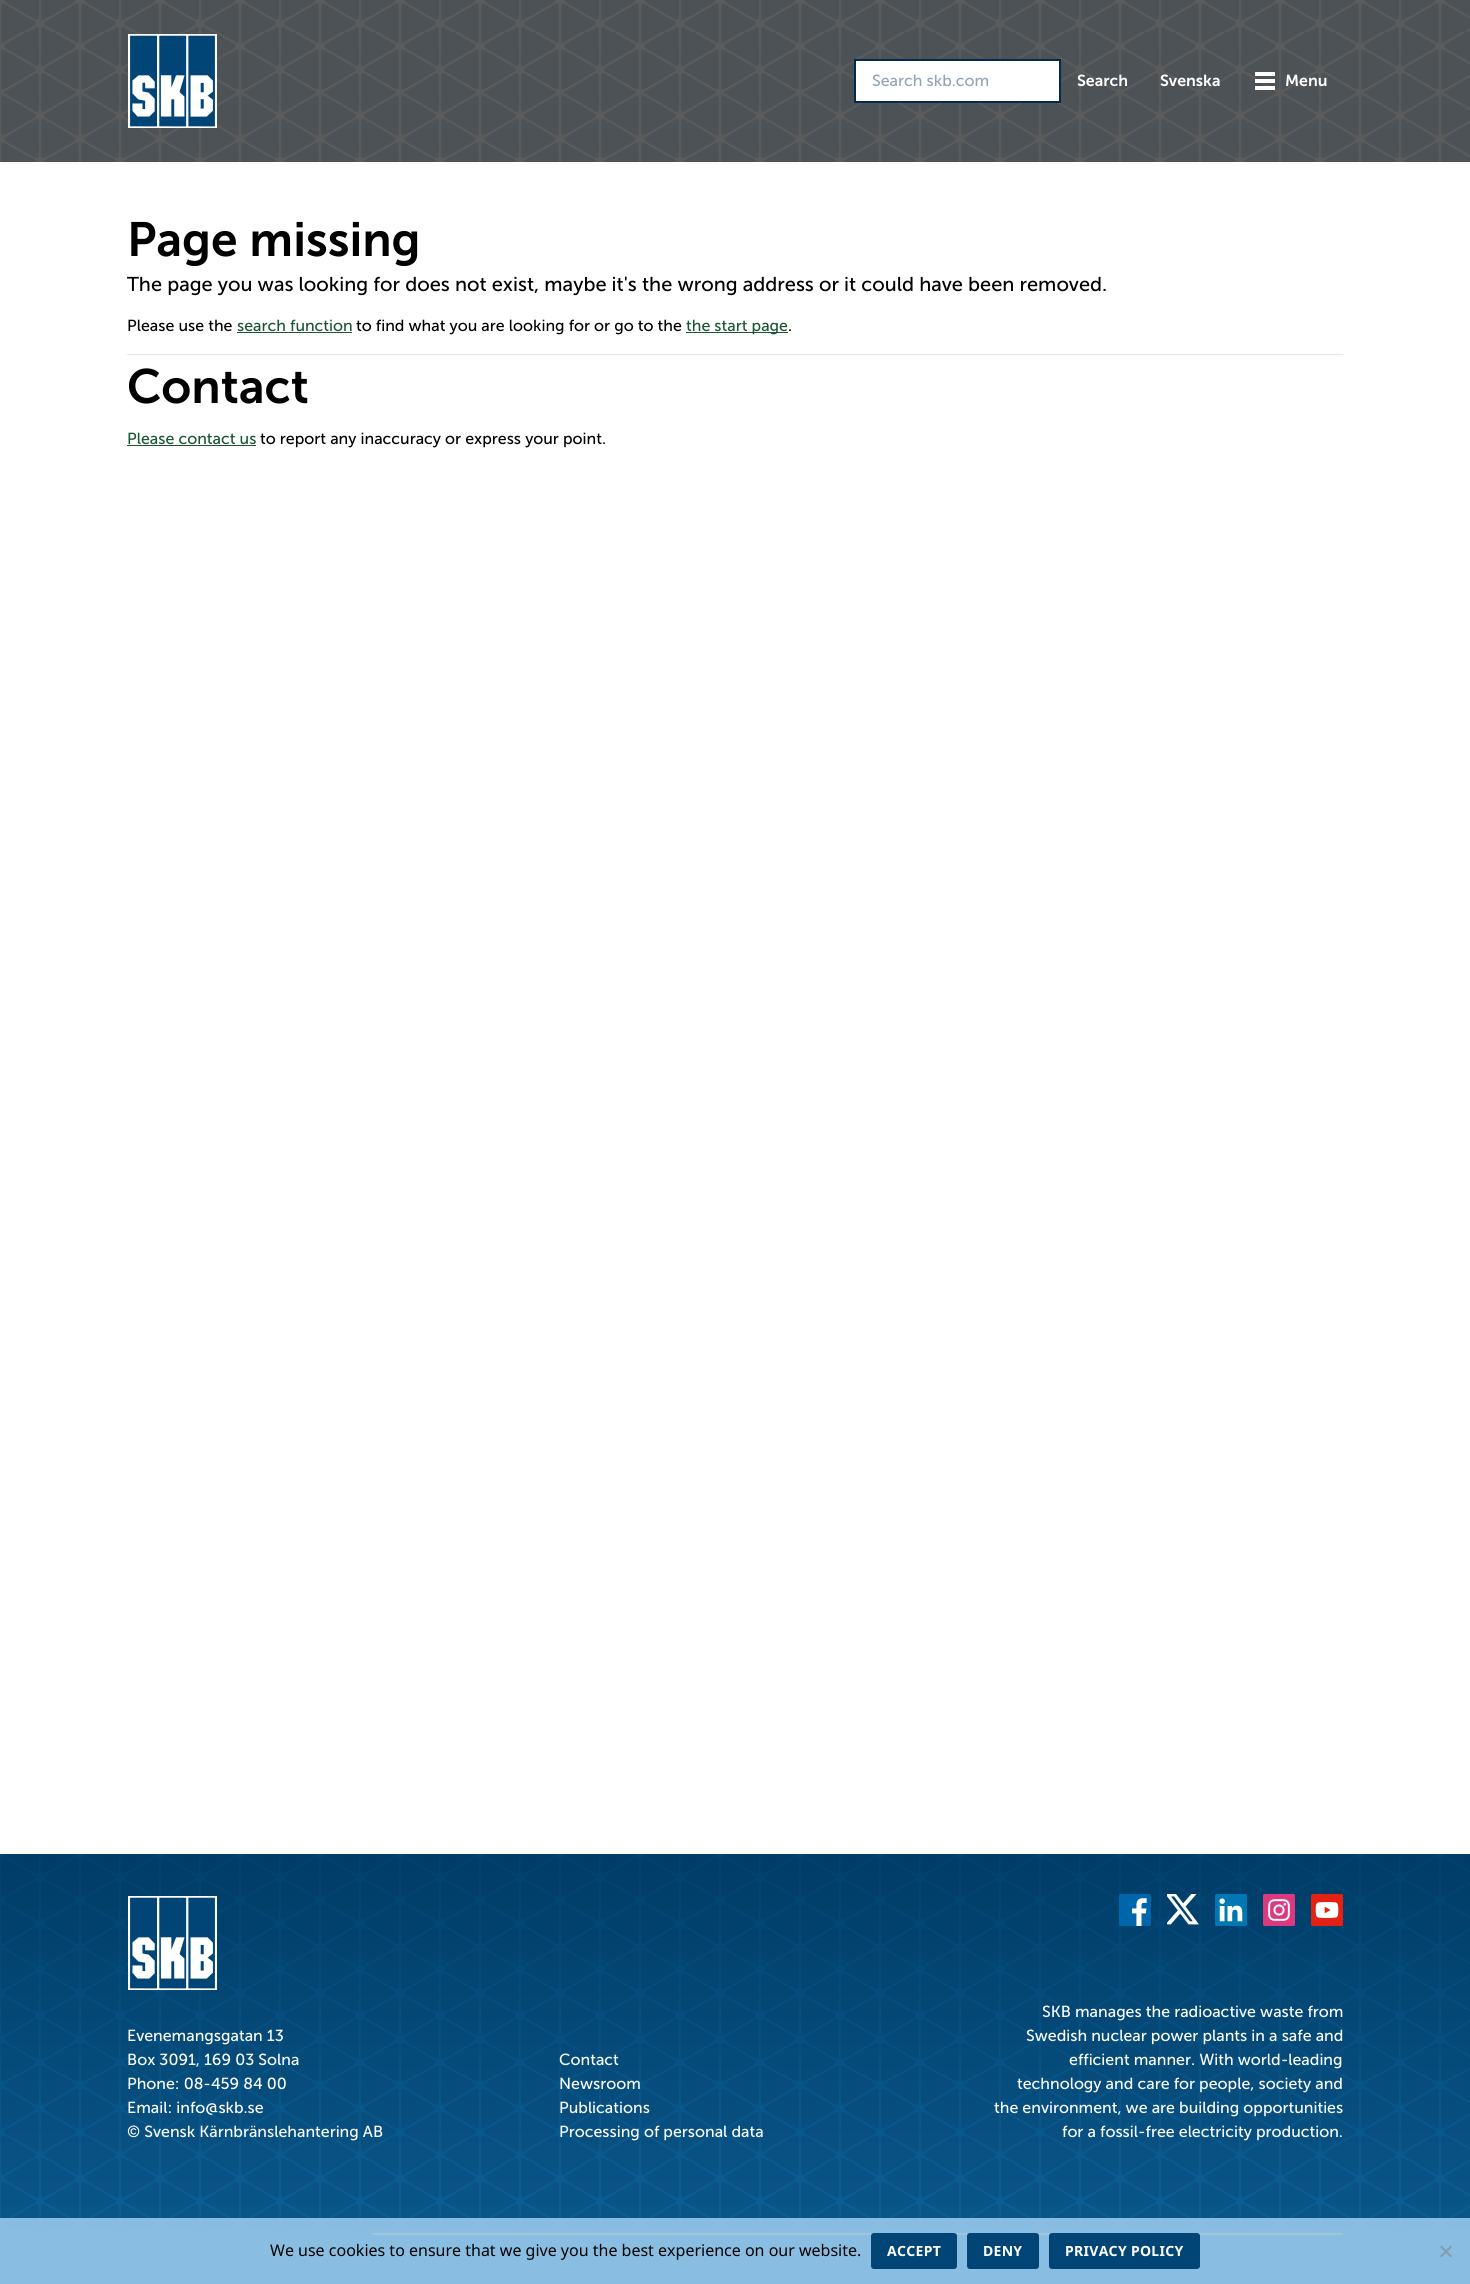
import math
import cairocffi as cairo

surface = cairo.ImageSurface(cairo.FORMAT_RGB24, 1470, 2284)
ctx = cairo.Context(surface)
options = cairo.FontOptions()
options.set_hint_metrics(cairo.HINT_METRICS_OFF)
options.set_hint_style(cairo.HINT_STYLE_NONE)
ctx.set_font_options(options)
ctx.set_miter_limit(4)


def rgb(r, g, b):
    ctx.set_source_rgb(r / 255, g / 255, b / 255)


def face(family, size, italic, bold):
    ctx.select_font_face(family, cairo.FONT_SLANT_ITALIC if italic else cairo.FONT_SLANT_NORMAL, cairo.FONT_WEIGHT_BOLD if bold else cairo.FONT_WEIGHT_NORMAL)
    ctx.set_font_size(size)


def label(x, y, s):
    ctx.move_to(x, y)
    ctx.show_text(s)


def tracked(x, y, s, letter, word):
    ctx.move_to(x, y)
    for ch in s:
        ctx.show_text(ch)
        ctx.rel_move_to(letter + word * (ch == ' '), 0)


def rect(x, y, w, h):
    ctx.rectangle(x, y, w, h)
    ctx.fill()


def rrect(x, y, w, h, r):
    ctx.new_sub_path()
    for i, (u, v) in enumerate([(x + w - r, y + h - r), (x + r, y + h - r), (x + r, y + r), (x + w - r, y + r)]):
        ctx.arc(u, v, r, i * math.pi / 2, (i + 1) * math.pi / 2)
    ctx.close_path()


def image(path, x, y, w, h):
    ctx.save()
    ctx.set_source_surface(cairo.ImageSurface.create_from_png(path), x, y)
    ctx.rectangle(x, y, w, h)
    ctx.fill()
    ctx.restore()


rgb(255, 255, 255)
ctx.paint()
rgb(91, 91, 91)
rect(0, 0, 1470, 162)
image('image0.png', 1, 0, 1469, 162)
image('image1.png', 128, 34, 89, 94)
rgb(255, 255, 255)
ctx.rectangle(855, 60, 205, 42)
ctx.fill_preserve()
rgb(0, 42, 78)
ctx.stroke()
face('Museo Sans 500', 16, 0, 0)
rgb(148, 163, 184)
label(872, 86, 'Search skb.com')
face('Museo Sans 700 SemiBold', 16, 0, 0)
rgb(255, 255, 255)
label(1077, 86, 'Search')
label(1160, 86, 'Svenska')
image('image2.png', 1255, 72, 20, 18)
label(1285, 86, 'Menu')
face('Museo Sans 700 SemiBold', 48, 0, 0)
rgb(0, 0, 0)
label(127, 256, 'Page missing')
face('Museo Sans 500', 20, 0, 0)
label(127, 291, 'The page you was looking for does not exist, maybe it\'s the wrong address or it could have been removed.')
face('Museo Sans 500', 16, 0, 0)
label(127, 331, 'Please use the')
rgb(26, 86, 50)
label(237, 331, 'search function')
rect(237, 332, 115, 1)
rgb(0, 0, 0)
label(356, 331, 'to find what you are looking for or go to the')
rgb(26, 86, 50)
rect(686, 332, 102, 1)
label(686, 331, 'the start page')
rgb(0, 0, 0)
label(788, 331, '.')
rgb(229, 231, 235)
rect(127, 354, 1216, 1)
face('Museo Sans 700 SemiBold', 48, 0, 0)
rgb(0, 0, 0)
label(127, 403, 'Contact')
face('Museo Sans 500', 16, 0, 0)
rgb(26, 86, 50)
label(127, 444, 'Please contact us')
rect(127, 445, 129, 1)
rgb(0, 0, 0)
label(260, 444, 'to report any inaccuracy or express your point.')
gradient = cairo.LinearGradient(735, 1854, 735, 2284)
gradient.add_color_stop_rgba(0, 0, 0.255, 0.431, 1)
gradient.add_color_stop_rgba(1, 0.051, 0.392, 0.616, 1)
ctx.set_source(gradient)
rect(0, 1854, 1470, 430)
image('image3.png', 1, 1854, 1469, 430)
image('image1.png', 128, 1896, 89, 94)
rgb(255, 255, 255)
label(127, 2041, 'Evenemangsgatan 13')
label(127, 2065, 'Box 3091, 169 03 Solna')
label(127, 2089, 'Phone: 08-459 84 00')
label(127, 2113, 'Email: info@skb.se')
label(127, 2137, '© Svensk Kärnbränslehantering AB')
label(559, 2065, 'Contact')
label(559, 2089, 'Newsroom')
label(559, 2113, 'Publications')
label(559, 2137, 'Processing of personal data')
image('image4.png', 1119, 1894, 32, 32)
image('image5.png', 1167, 1894, 32, 31)
image('image6.png', 1215, 1894, 32, 32)
image('image7.png', 1263, 1894, 32, 32)
image('image8.png', 1311, 1894, 32, 32)
label(1042, 2017, 'SKB manages the radioactive waste from')
label(1026, 2041, 'Swedish nuclear power plants in a safe and')
label(1069, 2065, 'efficient manner. With world-leading')
label(1017, 2089, 'technology and care for people, society and')
label(994, 2113, 'the environment, we are building opportunities')
label(1062, 2137, 'for a fossil-free electricity production.')
rgb(253, 183, 40)
rect(372, 2233, 971, 2)
ctx.set_source_rgba(0.592, 0.784, 0.922, 0.9)
rect(0, 2218, 1470, 66)
face('Noto Sans', 16, 0, 0)
rgb(0, 0, 0)
label(270, 2256, 'We use cookies to ensure that we give you the best experience on our website.')
rgb(0, 69, 118)
rrect(871, 2233, 86, 36, 3)
ctx.fill()
face('Noto Sans', 14, 0, 1)
rgb(255, 255, 255)
tracked(887, 2256, 'ACCEPT', 0.3, 0)
rgb(0, 69, 118)
rrect(967, 2233, 72, 36, 3)
ctx.fill()
rgb(255, 255, 255)
tracked(983, 2256, 'DENY', 0.3, 0)
rgb(0, 69, 118)
rrect(1049, 2233, 151, 36, 3)
ctx.fill()
rgb(255, 255, 255)
tracked(1065, 2256, 'PRIVACY POLICY', 0.3, 0)
rgb(132, 158, 177)
ctx.new_path()
ctx.move_to(1450.5, 2245.5)
ctx.line_to(1452, 2247)
ctx.line_to(1441.5, 2257.5)
ctx.line_to(1440, 2256)
ctx.close_path()
ctx.fill()
ctx.new_path()
ctx.move_to(1440, 2247)
ctx.line_to(1441.5, 2245.5)
ctx.line_to(1452, 2256)
ctx.line_to(1450.5, 2257.5)
ctx.close_path()
ctx.fill()
surface.write_to_png('render.png')
